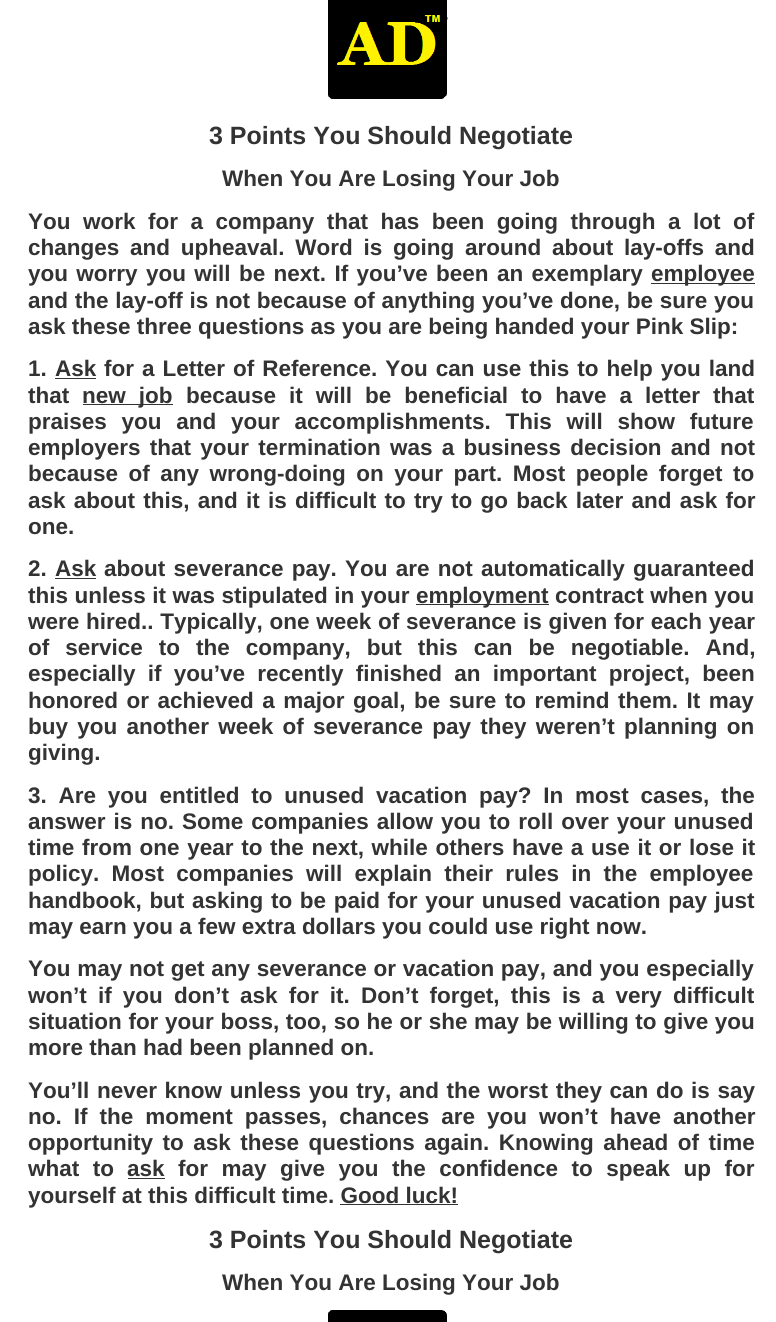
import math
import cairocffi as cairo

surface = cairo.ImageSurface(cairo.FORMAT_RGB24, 776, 1322)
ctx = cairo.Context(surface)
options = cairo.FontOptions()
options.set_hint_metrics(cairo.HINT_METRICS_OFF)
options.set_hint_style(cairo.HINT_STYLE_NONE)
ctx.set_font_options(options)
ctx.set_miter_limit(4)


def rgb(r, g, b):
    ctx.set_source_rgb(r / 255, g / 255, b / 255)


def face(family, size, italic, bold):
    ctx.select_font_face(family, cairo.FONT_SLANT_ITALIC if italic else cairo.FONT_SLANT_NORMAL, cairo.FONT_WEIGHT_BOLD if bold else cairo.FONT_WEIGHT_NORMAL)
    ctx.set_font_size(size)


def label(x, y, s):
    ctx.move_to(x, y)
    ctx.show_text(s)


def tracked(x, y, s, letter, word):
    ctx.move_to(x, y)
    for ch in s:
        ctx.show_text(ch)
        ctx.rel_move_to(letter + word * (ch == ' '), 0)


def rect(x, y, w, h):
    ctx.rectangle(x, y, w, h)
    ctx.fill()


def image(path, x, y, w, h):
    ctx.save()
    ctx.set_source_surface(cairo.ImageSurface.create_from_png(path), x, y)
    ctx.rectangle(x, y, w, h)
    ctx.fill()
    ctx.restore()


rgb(255, 255, 255)
ctx.paint()
image('image0.png', 328, 0, 120, 99)
face('Liberation Sans', 25, 0, 1)
rgb(51, 51, 51)
label(209, 144, '3 Points You Should Negotiate')
face('Liberation Sans', 22.5, 0, 1)
label(222, 186, 'When You Are Losing Your Job')
tracked(28, 229, 'You work for a company that has been going through a lot of', 0, 6.25)
tracked(28, 255, 'changes and upheaval. Word is going around about lay-offs and', 0, 4.5)
tracked(28, 281, 'you worry you will be next. If you’ve been an exemplary', 0, 2.1)
rect(651, 283, 104, 1)
label(651, 281, 'employee')
tracked(28, 308, 'and the lay-off is not because of anything you’ve done, be sure you', 0, 0.5)
label(28, 334, 'ask these three questions as you are being handed your Pink Slip:')
label(28, 376, '1.')
label(55, 376, 'Ask')
rect(55, 378, 41, 1)
tracked(104, 376, 'for a Letter of Reference. You can use this to help you land', 0, 1.75)
label(28, 403, 'that')
rect(83, 404, 90, 1)
tracked(82, 403, 'new job', 0, 6.75)
tracked(186, 403, 'because it will be beneficial to have a letter that', 0, 6.75)
tracked(28, 429, 'praises you and your accomplishments. This will show future', 0, 8.5)
tracked(28, 455, 'employers that your termination was a business decision and not', 0, 3)
tracked(28, 481, 'because of any wrong-doing on your part. Most people forget to', 0, 4.25)
tracked(28, 508, 'ask about this, and it is difficult to try to go back later and ask for', 0, 2)
label(28, 534, 'one.')
label(28, 576, '2.')
label(55, 576, 'Ask')
rect(55, 578, 41, 1)
tracked(104, 576, 'about severance pay. You are not automatically guaranteed', 0, 2)
tracked(28, 603, 'this unless it was stipulated in your', 0, 0.25)
rect(416, 604, 133, 1)
label(416, 603, 'employment')
tracked(555, 603, 'contract when you', 0, 0.25)
tracked(28, 629, 'were hired.. Typically, one week of severance is given for each year', 0, 0.5)
tracked(28, 655, 'of service to the company, but this can be negotiable. And,', 0, 9.75)
tracked(28, 681, 'especially if you’ve recently finished an important project, been', 0, 6)
tracked(28, 708, 'honored or achieved a major goal, be sure to remind them. It may', 0, 2.25)
tracked(28, 734, 'buy you another week of severance pay they weren’t planning on', 0, 3)
label(28, 760, 'giving.')
tracked(28, 803, '3. Are you entitled to unused vacation pay? In most cases, the', 0, 5.5)
tracked(28, 829, 'answer is no. Some companies allow you to roll over your unused', 0, 1.75)
tracked(28, 855, 'time from one year to the next, while others have a use it or lose it', 0, 1.4)
tracked(28, 881, 'policy. Most companies will explain their rules in the employee', 0, 6)
tracked(28, 908, 'handbook, but asking to be paid for your unused vacation pay just', 0, 1.4)
label(28, 934, 'may earn you a few extra dollars you could use right now.')
tracked(28, 976, 'You may not get any severance or vacation pay, and you especially', 0, 0.5)
tracked(28, 1003, 'won’t if you don’t ask for it. Don’t forget, this is a very difficult', 0, 4.9)
tracked(28, 1029, 'situation for your boss, too, so he or she may be willing to give you', 0, 0.4)
label(28, 1055, 'more than had been planned on.')
tracked(28, 1098, 'You’ll never know unless you try, and the worst they can do is say', 0, 1.4)
tracked(28, 1124, 'no. If the moment passes, chances are you won’t have another', 0, 5.75)
tracked(28, 1150, 'opportunity to ask these questions again. Knowing ahead of time', 0, 3.25)
tracked(28, 1176, 'what to', 0, 7.25)
label(127, 1176, 'ask')
rect(128, 1178, 37, 1)
tracked(178, 1176, 'for may give you the confidence to speak up for', 0, 7.25)
label(28, 1203, 'yourself at this difficult time. Good luck!')
rect(340, 1204, 118, 1)
face('Liberation Sans', 25, 0, 1)
label(209, 1248, '3 Points You Should Negotiate')
face('Liberation Sans', 22.5, 0, 1)
label(222, 1290, 'When You Are Losing Your Job')
image('image1.png', 328, 1310, 119, 12)
surface.write_to_png('render.png')
